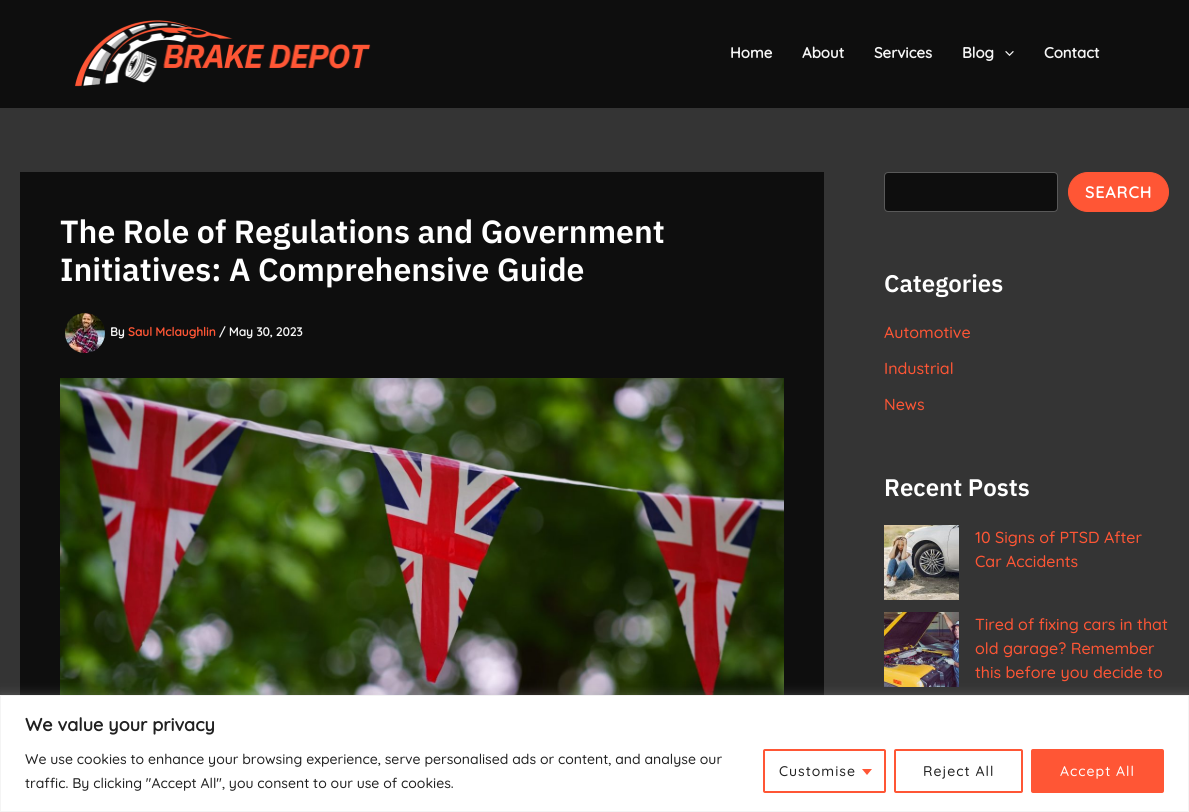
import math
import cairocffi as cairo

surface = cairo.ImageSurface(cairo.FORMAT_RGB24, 1189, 812)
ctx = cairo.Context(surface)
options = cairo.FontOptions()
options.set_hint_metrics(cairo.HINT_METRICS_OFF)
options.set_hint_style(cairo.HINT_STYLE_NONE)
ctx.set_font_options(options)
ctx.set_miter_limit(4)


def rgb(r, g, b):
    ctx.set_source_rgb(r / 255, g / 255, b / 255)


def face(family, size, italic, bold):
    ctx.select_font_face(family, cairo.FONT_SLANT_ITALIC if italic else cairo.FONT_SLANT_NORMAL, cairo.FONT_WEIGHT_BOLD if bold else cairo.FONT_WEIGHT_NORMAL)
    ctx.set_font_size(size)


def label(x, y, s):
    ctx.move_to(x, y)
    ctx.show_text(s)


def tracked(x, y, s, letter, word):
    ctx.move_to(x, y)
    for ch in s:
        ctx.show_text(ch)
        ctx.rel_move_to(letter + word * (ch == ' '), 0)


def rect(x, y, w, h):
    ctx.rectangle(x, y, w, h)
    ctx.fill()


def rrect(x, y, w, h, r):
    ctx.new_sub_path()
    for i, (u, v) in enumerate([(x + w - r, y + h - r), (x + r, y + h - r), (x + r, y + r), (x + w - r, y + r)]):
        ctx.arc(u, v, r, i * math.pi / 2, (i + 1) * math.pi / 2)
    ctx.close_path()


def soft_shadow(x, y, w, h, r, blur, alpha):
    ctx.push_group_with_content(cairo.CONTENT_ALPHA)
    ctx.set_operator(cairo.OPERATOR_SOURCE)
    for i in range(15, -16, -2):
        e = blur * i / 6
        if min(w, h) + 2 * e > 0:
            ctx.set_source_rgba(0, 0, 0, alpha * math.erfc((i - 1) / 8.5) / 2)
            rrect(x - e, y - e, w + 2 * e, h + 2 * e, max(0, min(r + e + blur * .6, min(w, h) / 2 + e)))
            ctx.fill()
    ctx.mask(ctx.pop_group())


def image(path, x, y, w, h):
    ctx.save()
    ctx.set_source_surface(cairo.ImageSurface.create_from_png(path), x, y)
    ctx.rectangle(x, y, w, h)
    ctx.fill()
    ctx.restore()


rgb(52, 52, 52)
ctx.paint()
rgb(14, 14, 14)
rect(0, 0, 1189, 108)
image('image0.png', 75, 20, 296, 67)
face('Quicksand', 15, 0, 1)
rgb(245, 245, 245)
label(730, 58, 'Home')
label(802, 58, 'About')
label(874, 58, 'Services')
label(962, 58, 'Blog')
image('image1.png', 1005, 51, 9, 5)
label(1044, 58, 'Contact')
rgb(14, 14, 14)
rect(20, 172, 804, 523)
face('IBM Plex Sans SemiBold', 32, 0, 0)
rgb(255, 255, 255)
label(60, 243, 'The Role of Regulations and Government')
label(60, 281, 'Initiatives: A Comprehensive Guide')
image('image2.png', 65, 313, 40, 40)
face('Quicksand', 12, 0, 1)
rgb(245, 245, 245)
label(110, 336, 'By')
rgb(255, 86, 53)
label(128, 336, 'Saul Mclaughlin')
rgb(245, 245, 245)
label(219, 336, '/ May 30, 2023')
image('image3.png', 60, 378, 724, 317)
rgb(14, 14, 14)
rrect(884.5, 172.5, 173, 39, 3.5)
ctx.fill_preserve()
rgb(89, 89, 89)
ctx.set_line_width(1)
ctx.stroke()
rgb(255, 86, 53)
rrect(1068.5, 172.5, 100, 39, 19.5)
ctx.fill_preserve()
ctx.stroke()
face('Quicksand', 16, 0, 1)
rgb(255, 255, 255)
tracked(1085, 198, 'SEARCH', 1, 0)
face('IBM Plex Sans SemiBold', 24, 0, 0)
label(884, 292, 'Categories')
face('Quicksand Light', 16, 0, 0)
rgb(255, 86, 53)
label(884, 338, 'Automotive')
label(884, 374, 'Industrial')
label(884, 410, 'News')
face('IBM Plex Sans SemiBold', 24, 0, 0)
rgb(255, 255, 255)
label(884, 496, 'Recent Posts')
image('image4.png', 884, 525, 75, 75)
face('Quicksand Light', 16, 0, 0)
rgb(255, 86, 53)
label(975, 543, '10 Signs of PTSD After')
label(975, 567, 'Car Accidents')
image('image5.png', 884, 612, 75, 75)
label(975, 630, 'Tired of fixing cars in that')
label(975, 654, 'old garage? Remember')
label(975, 678, 'this before you decide to')
rgb(172, 171, 171)
soft_shadow(0, 694, 1189, 117, 0, 5, 0.3)
rgb(255, 255, 255)
ctx.rectangle(0.5, 695.5, 1188, 116)
ctx.fill_preserve()
rgb(244, 244, 244)
ctx.stroke()
face('Quicksand', 18, 0, 1)
rgb(33, 33, 33)
label(25, 731, 'We value your privacy')
face('Quicksand Light', 14, 0, 0)
label(25, 764, 'We use cookies to enhance your browsing experience, serve personalised ads or content, and analyse our')
label(25, 788, 'traffic. By clicking "Accept All", you consent to our use of cookies.')
rrect(764, 750, 121, 42, 1)
rgb(255, 86, 53)
ctx.set_line_width(2)
ctx.stroke()
rgb(33, 33, 33)
tracked(779, 776, 'Customise', 1, 0)
rgb(255, 86, 53)
ctx.new_path()
ctx.move_to(862, 769)
ctx.line_to(872, 769)
ctx.line_to(867, 775)
ctx.close_path()
ctx.fill()
rrect(895, 750, 127, 42, 1)
ctx.stroke()
rgb(33, 33, 33)
tracked(923, 776, 'Reject All', 1, 0)
rgb(255, 86, 53)
rrect(1032, 750, 131, 42, 1)
ctx.fill_preserve()
ctx.stroke()
rgb(255, 255, 255)
tracked(1060, 776, 'Accept All', 1, 0)
surface.write_to_png('render.png')
